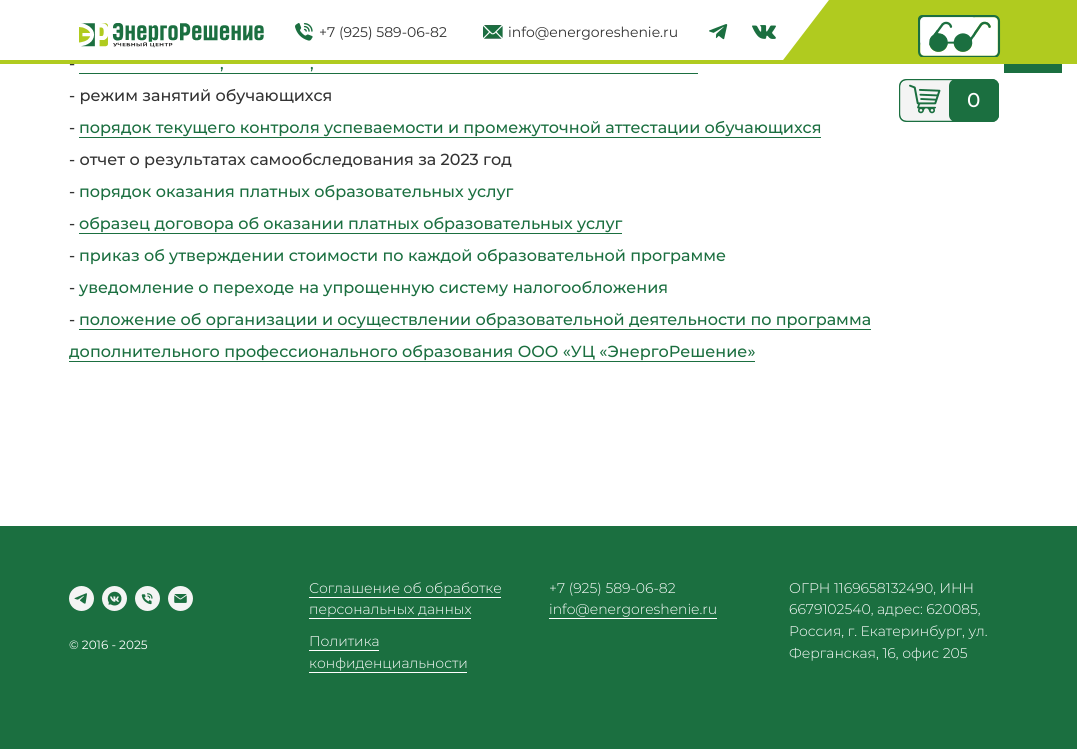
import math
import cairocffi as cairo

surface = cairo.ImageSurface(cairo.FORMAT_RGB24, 1077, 749)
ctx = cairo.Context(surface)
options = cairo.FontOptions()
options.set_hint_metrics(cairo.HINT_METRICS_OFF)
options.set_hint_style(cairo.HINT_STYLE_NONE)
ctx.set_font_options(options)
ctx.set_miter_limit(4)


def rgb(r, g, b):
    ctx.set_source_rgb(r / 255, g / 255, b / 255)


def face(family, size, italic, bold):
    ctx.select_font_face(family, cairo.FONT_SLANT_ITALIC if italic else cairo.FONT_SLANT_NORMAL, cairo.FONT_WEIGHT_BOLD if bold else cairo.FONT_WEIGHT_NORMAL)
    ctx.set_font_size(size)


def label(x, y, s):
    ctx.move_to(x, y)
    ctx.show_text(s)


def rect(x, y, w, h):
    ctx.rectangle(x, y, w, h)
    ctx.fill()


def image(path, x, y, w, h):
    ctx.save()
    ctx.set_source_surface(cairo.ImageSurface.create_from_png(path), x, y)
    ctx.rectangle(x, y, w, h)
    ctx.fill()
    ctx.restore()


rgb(255, 255, 255)
ctx.paint()
rgb(176, 203, 31)
ctx.set_fill_rule(cairo.FILL_RULE_EVEN_ODD)
ctx.new_path()
ctx.move_to(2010, 64)
ctx.line_to(780, 64)
ctx.line_to(943, -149)
ctx.line_to(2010, -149)
ctx.close_path()
ctx.fill()
image('image0.png', 918, 15, 58, 30)
image('image1.png', 79, 23, 185, 25)
image('image2.png', 295, 23, 18, 18)
face('Montserrat', 14, 0, 0)
rgb(51, 51, 51)
label(319, 37, '+7 (925) 589-06-82')
image('image3.png', 483, 25, 20, 14)
label(508, 37, 'info@energoreshenie.ru')
image('image4.png', 709, 24, 19, 16)
image('image5.png', 752, 25, 24, 14)
image('image6.png', 918, 15, 83, 42)
face('Montserrat Medium', 16, 0, 0)
label(69, 69, '-')
rgb(176, 203, 31)
rect(0, 60, 783, 4)
image('image7.png', 899, 79, 100, 43)
face('Montserrat Medium', 20, 0, 0)
rgb(255, 255, 255)
label(967, 107, '0')
rgb(27, 111, 64)
rect(1004, 64, 58, 9)
face('Montserrat Medium', 16, 0, 0)
label(220, 69, ',')
rect(79, 73, 619, 1)
label(310, 69, ',')
rgb(51, 51, 51)
label(69, 101, '- режим занятий обучающихся')
label(69, 133, '-')
rgb(27, 111, 64)
label(79, 133, 'порядок текущего контроля успеваемости и промежуточной аттестации обучающихся')
rect(79, 137, 742, 1)
rgb(51, 51, 51)
label(69, 165, '- отчет о результатах самообследования за 2023 год')
label(69, 197, '-')
rgb(27, 111, 64)
label(79, 197, 'порядок оказания платных образовательных услуг')
rgb(51, 51, 51)
label(69, 229, '-')
rgb(27, 111, 64)
label(79, 229, 'образец договора об оказании платных образовательных услуг')
rect(79, 233, 543, 1)
rgb(51, 51, 51)
label(69, 261, '-')
rgb(27, 111, 64)
label(79, 261, 'приказ об утверждении стоимости по каждой образовательной программе')
rgb(51, 51, 51)
label(69, 293, '-')
rgb(27, 111, 64)
label(79, 293, 'уведомление о переходе на упрощенную систему налогообложения')
rgb(51, 51, 51)
label(69, 325, '-')
rgb(27, 111, 64)
label(79, 325, 'положение об организации и осуществлении образовательной деятельности по программа')
rect(79, 329, 792, 1)
label(69, 357, 'дополнительного профессионального образования ООО «УЦ «ЭнергоРешение»')
rect(69, 361, 686, 1)
rect(0, 526, 1077, 223)
image('image8.png', 69, 586, 25, 25)
image('image9.png', 102, 586, 25, 25)
image('image10.png', 135, 586, 25, 25)
image('image11.png', 168, 586, 25, 25)
face('Montserrat', 12, 0, 0)
rgb(255, 255, 255)
label(69, 649, '© 2016 - 2025')
face('Montserrat Light', 14, 0, 0)
label(309, 593, 'Соглашение об обработке')
rect(309, 597, 192, 1)
label(309, 614, 'персональных данных')
rect(309, 618, 162, 1)
label(309, 646, 'Политика')
rect(309, 650, 70, 1)
label(309, 668, 'конфиденциальности')
rect(309, 672, 158, 1)
label(549, 593, '+7 (925) 589-06-82')
label(549, 614, 'info@energoreshenie.ru')
rect(549, 618, 168, 1)
label(789, 593, 'ОГРН 1169658132490, ИНН')
label(789, 614, '6679102540, адрес: 620085,')
label(789, 636, 'Россия, г. Екатеринбург, ул.')
label(789, 658, 'Ферганская, 16, офис 205')
surface.write_to_png('render.png')
